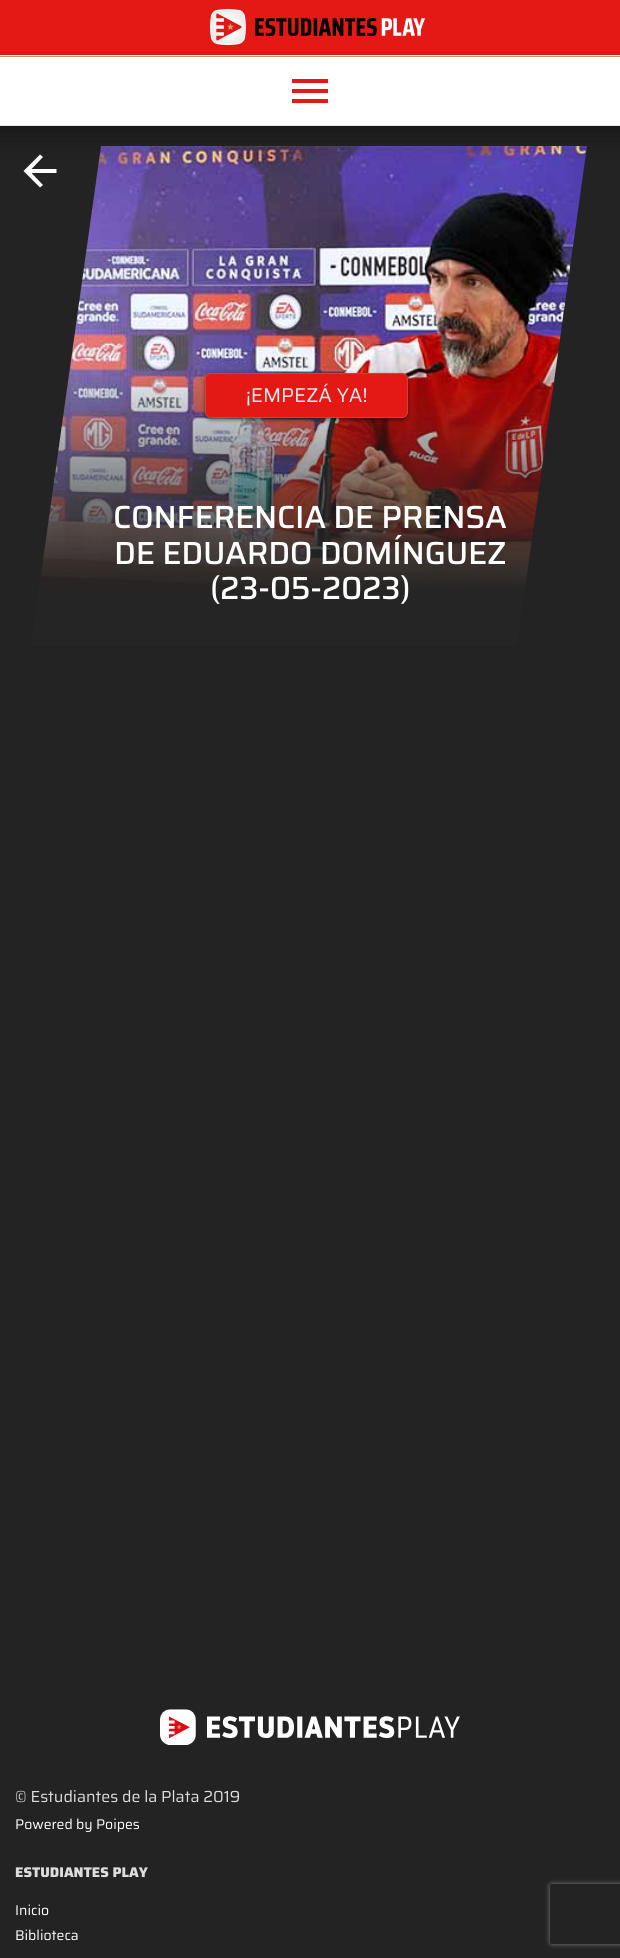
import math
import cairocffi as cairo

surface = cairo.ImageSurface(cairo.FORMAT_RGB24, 620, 1958)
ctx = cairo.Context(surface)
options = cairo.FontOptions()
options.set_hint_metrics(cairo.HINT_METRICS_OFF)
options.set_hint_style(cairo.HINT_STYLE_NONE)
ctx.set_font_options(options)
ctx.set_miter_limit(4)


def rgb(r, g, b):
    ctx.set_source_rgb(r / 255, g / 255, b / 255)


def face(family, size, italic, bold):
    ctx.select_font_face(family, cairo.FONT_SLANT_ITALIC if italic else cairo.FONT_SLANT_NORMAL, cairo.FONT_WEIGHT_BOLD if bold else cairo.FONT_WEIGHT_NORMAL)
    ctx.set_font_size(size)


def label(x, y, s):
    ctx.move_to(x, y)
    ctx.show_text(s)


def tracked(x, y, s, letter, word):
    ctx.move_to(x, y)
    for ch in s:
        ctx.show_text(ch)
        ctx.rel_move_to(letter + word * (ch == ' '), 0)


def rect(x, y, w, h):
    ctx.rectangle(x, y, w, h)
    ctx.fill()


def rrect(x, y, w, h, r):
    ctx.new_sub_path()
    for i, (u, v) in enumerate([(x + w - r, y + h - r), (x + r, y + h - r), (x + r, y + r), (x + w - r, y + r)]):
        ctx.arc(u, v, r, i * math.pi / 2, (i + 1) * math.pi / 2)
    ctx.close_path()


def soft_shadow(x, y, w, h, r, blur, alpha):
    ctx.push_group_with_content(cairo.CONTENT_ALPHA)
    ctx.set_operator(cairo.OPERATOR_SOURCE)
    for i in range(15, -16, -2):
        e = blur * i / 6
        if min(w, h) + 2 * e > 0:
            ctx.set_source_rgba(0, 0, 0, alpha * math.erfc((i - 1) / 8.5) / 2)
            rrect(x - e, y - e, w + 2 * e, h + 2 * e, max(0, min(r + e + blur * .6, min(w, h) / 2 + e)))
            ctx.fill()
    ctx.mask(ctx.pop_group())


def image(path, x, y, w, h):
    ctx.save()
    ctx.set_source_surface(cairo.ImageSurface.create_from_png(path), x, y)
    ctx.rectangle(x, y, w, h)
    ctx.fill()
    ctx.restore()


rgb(35, 35, 35)
ctx.paint()
image('image1.png', 31, 146, 556, 500)
rgb(35, 35, 35)
ctx.new_path()
ctx.move_to(11, 146)
ctx.line_to(101, 146)
ctx.line_to(31, 646)
ctx.line_to(-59, 646)
ctx.close_path()
ctx.fill()
ctx.new_path()
ctx.move_to(587, 146)
ctx.line_to(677, 146)
ctx.line_to(607, 646)
ctx.line_to(517, 646)
ctx.close_path()
ctx.fill()
rgb(0, 0, 0)
soft_shadow(-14, -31, 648, 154, 0, 17, 0.7)
rgb(255, 255, 255)
rect(0, 57, 620, 68)
rgb(230, 230, 230)
rect(0, 125, 620, 1)
rgb(228, 24, 21)
rect(0, 0, 620, 55)
rgb(255, 255, 255)
rect(0, 55, 620, 1)
image('image0.png', 210, 9, 215, 36)
rgb(173, 160, 114)
rect(0, 56, 620, 1)
rgb(228, 24, 21)
ctx.new_path()
ctx.move_to(292, 79)
ctx.line_to(328, 79)
ctx.line_to(328, 83)
ctx.line_to(292, 83)
ctx.close_path()
ctx.move_to(292, 93)
ctx.line_to(292, 89)
ctx.line_to(328, 89)
ctx.line_to(328, 93)
ctx.close_path()
ctx.move_to(292, 103)
ctx.line_to(292, 99)
ctx.line_to(328, 99)
ctx.line_to(328, 103)
ctx.close_path()
ctx.fill()
rgb(255, 255, 255)
ctx.new_path()
ctx.move_to(56.5, 169)
ctx.line_to(56.5, 173)
ctx.line_to(31.5, 173)
ctx.line_to(43, 185)
ctx.line_to(40, 187.5)
ctx.line_to(23.5, 171)
ctx.line_to(40, 154.5)
ctx.line_to(43, 157)
ctx.line_to(31.5, 169)
ctx.close_path()
ctx.fill()
rgb(0, 0, 0)
soft_shadow(205, 375, 203, 45, 6, 2, 0.5)
rgb(228, 24, 21)
rrect(205.5, 373.5, 202, 44, 5.5)
ctx.fill_preserve()
rgb(212, 63, 58)
ctx.set_line_width(1)
ctx.stroke()
face('Saira', 20, 0, 0)
rgb(237, 237, 237)
label(246, 402, '¡EMPEZÁ YA!')
face('Saira Medium', 32, 0, 0)
rgb(255, 255, 255)
tracked(113, 528, 'CONFERENCIA DE PRENSA', -0.3, 0)
tracked(114, 564, 'DE EDUARDO DOMÍNGUEZ', -0.3, 0)
tracked(210, 599, '(23-05-2023)', -0.3, 0)
image('image2.png', 160, 1709, 300, 36)
face('Saira', 16, 0, 0)
rgb(221, 221, 221)
label(15, 1802, '© Estudiantes de la Plata 2019')
face('Saira', 14, 0, 0)
rgb(255, 255, 255)
label(15, 1829, 'Powered by Poipes')
face('Saira ExtraBold', 14, 0, 0)
rgb(221, 221, 221)
label(15, 1877, 'ESTUDIANTES PLAY')
face('Saira', 14, 0, 0)
rgb(255, 255, 255)
label(15, 1915, 'Inicio')
label(15, 1940, 'Biblioteca')
ctx.save()
ctx.set_fill_rule(cairo.FILL_RULE_EVEN_ODD)
ctx.new_path()
ctx.move_to(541, 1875)
ctx.line_to(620, 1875)
ctx.line_to(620, 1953)
ctx.line_to(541, 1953)
ctx.close_path()
ctx.move_to(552, 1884)
ctx.line_to(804, 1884)
ctx.curve_to(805, 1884, 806, 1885, 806, 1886)
ctx.line_to(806, 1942)
ctx.curve_to(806, 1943, 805, 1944, 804, 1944)
ctx.line_to(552, 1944)
ctx.curve_to(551, 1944, 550, 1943, 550, 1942)
ctx.line_to(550, 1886)
ctx.curve_to(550, 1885, 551, 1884, 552, 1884)
ctx.close_path()
ctx.clip()
rgb(128, 128, 128)
soft_shadow(550, 1884, 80, 60, 2, 2.5, 1)
ctx.restore()
surface.write_to_png('render.png')
